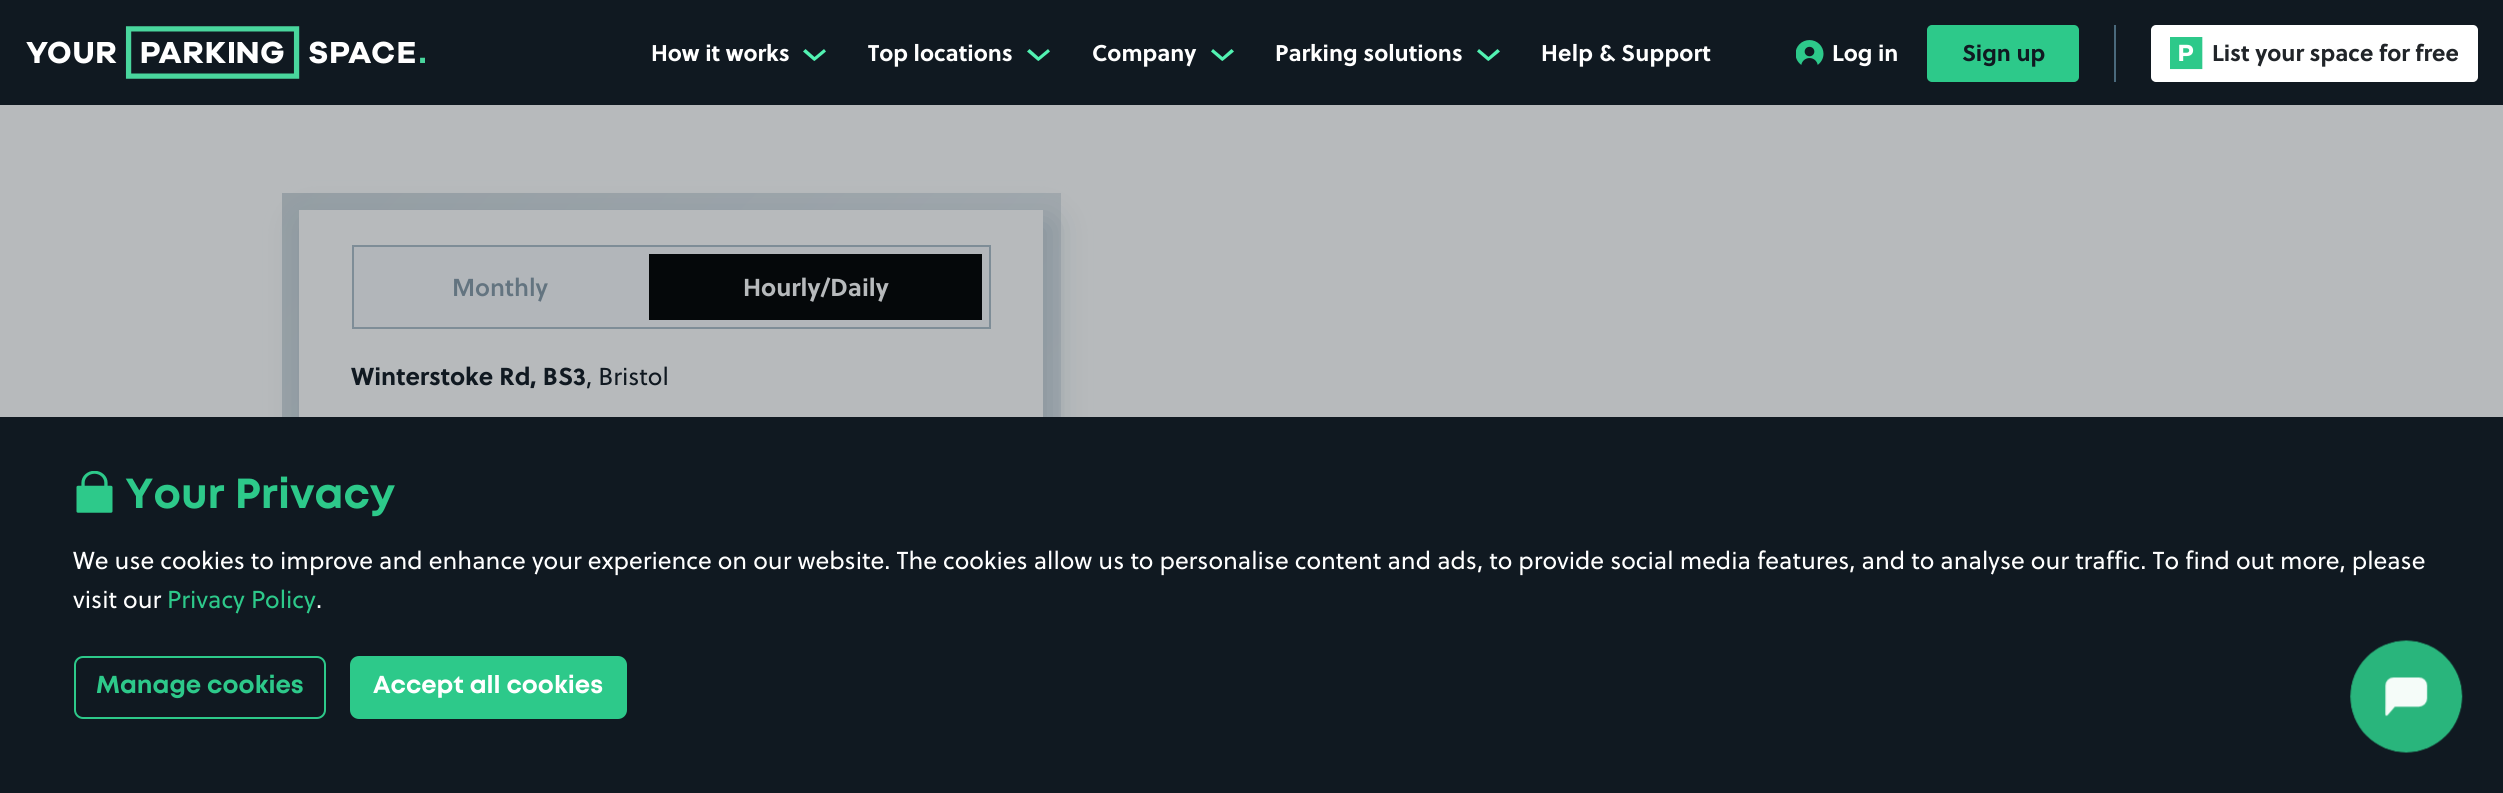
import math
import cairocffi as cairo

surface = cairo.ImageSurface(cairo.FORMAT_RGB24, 2503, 793)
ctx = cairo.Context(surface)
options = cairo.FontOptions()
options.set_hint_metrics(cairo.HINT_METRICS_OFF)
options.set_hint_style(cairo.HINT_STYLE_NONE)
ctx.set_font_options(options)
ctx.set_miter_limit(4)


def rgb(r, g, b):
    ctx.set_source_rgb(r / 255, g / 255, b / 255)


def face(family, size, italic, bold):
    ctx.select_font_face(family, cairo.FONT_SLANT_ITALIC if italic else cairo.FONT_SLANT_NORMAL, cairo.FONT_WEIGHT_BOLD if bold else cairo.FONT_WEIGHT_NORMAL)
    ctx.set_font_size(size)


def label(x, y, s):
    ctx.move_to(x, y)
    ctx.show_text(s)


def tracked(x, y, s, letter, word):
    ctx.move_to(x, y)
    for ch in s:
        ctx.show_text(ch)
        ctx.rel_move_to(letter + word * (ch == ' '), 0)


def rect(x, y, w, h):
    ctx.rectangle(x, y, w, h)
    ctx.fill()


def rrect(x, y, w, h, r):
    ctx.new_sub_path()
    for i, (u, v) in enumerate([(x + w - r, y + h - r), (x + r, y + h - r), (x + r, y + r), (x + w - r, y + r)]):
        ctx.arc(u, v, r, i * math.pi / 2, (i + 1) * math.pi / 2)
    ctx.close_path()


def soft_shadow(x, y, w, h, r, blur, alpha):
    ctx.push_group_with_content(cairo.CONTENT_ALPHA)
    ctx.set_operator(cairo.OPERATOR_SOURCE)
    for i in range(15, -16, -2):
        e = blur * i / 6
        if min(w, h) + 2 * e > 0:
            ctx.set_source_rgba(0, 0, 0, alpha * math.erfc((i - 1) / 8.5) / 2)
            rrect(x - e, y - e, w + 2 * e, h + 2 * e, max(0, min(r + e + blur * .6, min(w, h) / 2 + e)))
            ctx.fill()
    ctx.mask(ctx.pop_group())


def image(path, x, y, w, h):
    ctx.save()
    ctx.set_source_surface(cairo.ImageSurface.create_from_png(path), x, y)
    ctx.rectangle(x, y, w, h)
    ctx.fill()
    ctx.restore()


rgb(183, 186, 188)
ctx.paint()
rgb(16, 25, 33)
rect(0, 0, 2503, 105)
image('image0.png', 26, 26, 399, 53)
face('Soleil', 22.75, 0, 1)
rgb(255, 255, 255)
label(651, 61, 'How it works')
rgb(82, 242, 178)
ctx.new_path()
ctx.move_to(814.5, 61)
ctx.line_to(826, 51.5)
ctx.line_to(824, 49)
ctx.line_to(814.5, 57)
ctx.line_to(805.5, 49)
ctx.line_to(803, 51.5)
ctx.line_to(813.5, 60.5)
ctx.close_path()
ctx.fill()
rgb(255, 255, 255)
label(868, 61, 'Top locations')
rgb(82, 242, 178)
ctx.new_path()
ctx.move_to(1038.5, 61)
ctx.line_to(1050, 51.5)
ctx.line_to(1048, 49)
ctx.line_to(1038.5, 57)
ctx.line_to(1029.5, 49)
ctx.line_to(1027, 51.5)
ctx.line_to(1037.5, 60.5)
ctx.close_path()
ctx.fill()
rgb(255, 255, 255)
label(1092, 61, 'Company')
rgb(82, 242, 178)
ctx.new_path()
ctx.move_to(1222.5, 61)
ctx.line_to(1234, 51.5)
ctx.line_to(1231.5, 49)
ctx.line_to(1222.5, 57)
ctx.line_to(1213, 49)
ctx.line_to(1211, 51.5)
ctx.line_to(1221.5, 60.5)
ctx.close_path()
ctx.fill()
rgb(255, 255, 255)
label(1275, 61, 'Parking solutions')
rgb(82, 242, 178)
ctx.new_path()
ctx.move_to(1488.5, 61)
ctx.line_to(1500, 51.5)
ctx.line_to(1497.5, 49)
ctx.line_to(1488.5, 57)
ctx.line_to(1479, 49)
ctx.line_to(1477, 51.5)
ctx.line_to(1487.5, 60.5)
ctx.close_path()
ctx.fill()
rgb(255, 255, 255)
tracked(1541, 61, 'Help & Support', 0.25, 0)
image('image1.png', 1796, 40, 28, 25)
label(1832, 61, 'Log in')
rgb(45, 201, 138)
rrect(1928, 26, 150, 55, 4)
ctx.fill_preserve()
ctx.stroke()
rgb(16, 25, 33)
label(1962, 61, 'Sign up')
rgb(74, 105, 124)
rect(2114, 25, 2, 57)
rgb(255, 255, 255)
rrect(2152, 26, 325, 55, 4)
ctx.fill_preserve()
ctx.stroke()
image('image2.png', 2170, 37, 33, 33)
rgb(33, 37, 41)
label(2212, 61, 'List your space for free')
gradient = cairo.LinearGradient(1214, 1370, 128, 357)
gradient.add_color_stop_rgba(0, 0.698, 0.714, 0.729, 1)
gradient.add_color_stop_rgba(1, 0.588, 0.624, 0.647, 1)
ctx.set_source(gradient)
rect(282, 193, 779, 224)
rgb(126, 141, 151)
soft_shadow(306, 224, 744, 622, 0, 17.5, 0.8)
rgb(183, 186, 188)
rect(299, 210, 744, 207)
rgb(178, 182, 186)
ctx.rectangle(353, 246, 637, 82)
ctx.fill_preserve()
rgb(126, 141, 151)
ctx.stroke()
face('Soleil SemiBold', 24.5, 0, 0)
rgb(99, 116, 128)
label(452, 296, 'Monthly')
rgb(5, 8, 10)
rect(649, 254, 333, 66)
face('Soleil', 24.5, 0, 1)
rgb(183, 186, 188)
label(743, 296, 'Hourly/Daily')
rgb(16, 25, 33)
label(351, 385, 'Winterstoke Rd, BS3')
face('Soleil', 24.5, 0, 0)
label(586, 385, ', Bristol')
rect(0, 417, 2503, 376)
image('image3.png', 76, 471, 37, 42)
face('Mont', 42, 0, 1)
rgb(45, 201, 138)
label(125, 508, 'Your Privacy')
face('Soleil', 24.5, 0, 0)
rgb(255, 255, 255)
label(73, 569, 'We use cookies to improve and enhance your experience on our website. The cookies allow us to personalise content and ads, to provide social media features, and to analyse our traffic. To find out more, please')
label(73, 608, 'visit our')
rgb(45, 201, 138)
label(167, 608, 'Privacy Policy')
rgb(255, 255, 255)
label(316, 608, '.')
rrect(75, 657, 250, 61, 8)
rgb(45, 201, 138)
ctx.stroke()
face('Mont', 24.5, 0, 1)
label(96, 693, 'Manage cookies')
rrect(351, 657, 275, 61, 8)
ctx.fill_preserve()
ctx.stroke()
rgb(255, 255, 255)
label(373, 693, 'Accept all cookies')
image('image4.png', 2350, 640, 113, 113)
surface.write_to_png('render.png')
